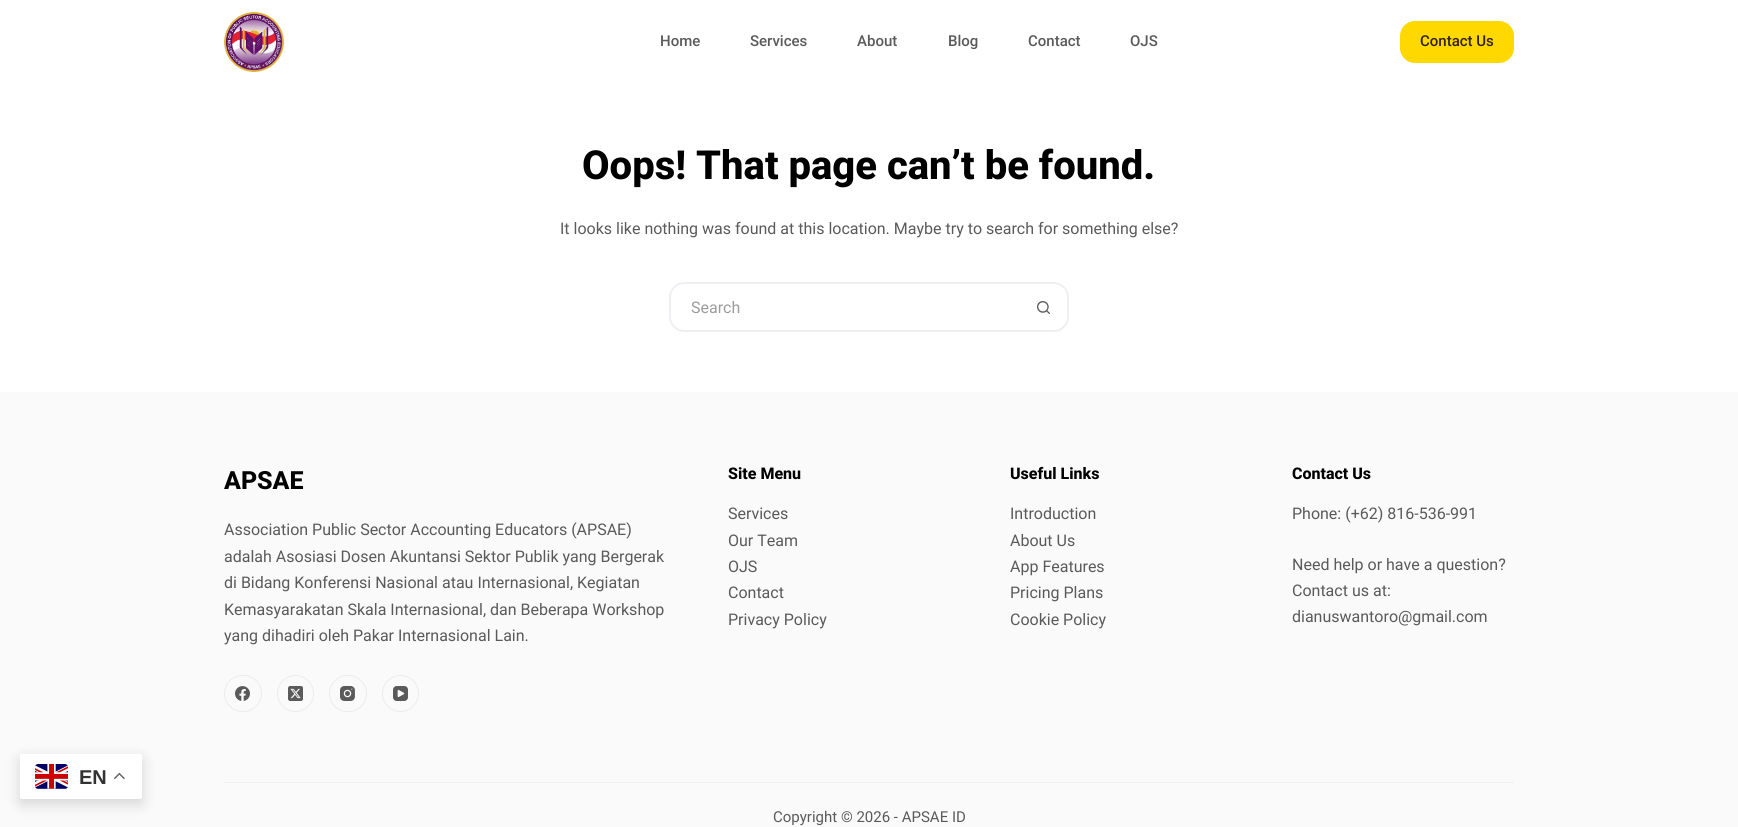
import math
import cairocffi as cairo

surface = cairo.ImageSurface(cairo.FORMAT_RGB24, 1738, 827)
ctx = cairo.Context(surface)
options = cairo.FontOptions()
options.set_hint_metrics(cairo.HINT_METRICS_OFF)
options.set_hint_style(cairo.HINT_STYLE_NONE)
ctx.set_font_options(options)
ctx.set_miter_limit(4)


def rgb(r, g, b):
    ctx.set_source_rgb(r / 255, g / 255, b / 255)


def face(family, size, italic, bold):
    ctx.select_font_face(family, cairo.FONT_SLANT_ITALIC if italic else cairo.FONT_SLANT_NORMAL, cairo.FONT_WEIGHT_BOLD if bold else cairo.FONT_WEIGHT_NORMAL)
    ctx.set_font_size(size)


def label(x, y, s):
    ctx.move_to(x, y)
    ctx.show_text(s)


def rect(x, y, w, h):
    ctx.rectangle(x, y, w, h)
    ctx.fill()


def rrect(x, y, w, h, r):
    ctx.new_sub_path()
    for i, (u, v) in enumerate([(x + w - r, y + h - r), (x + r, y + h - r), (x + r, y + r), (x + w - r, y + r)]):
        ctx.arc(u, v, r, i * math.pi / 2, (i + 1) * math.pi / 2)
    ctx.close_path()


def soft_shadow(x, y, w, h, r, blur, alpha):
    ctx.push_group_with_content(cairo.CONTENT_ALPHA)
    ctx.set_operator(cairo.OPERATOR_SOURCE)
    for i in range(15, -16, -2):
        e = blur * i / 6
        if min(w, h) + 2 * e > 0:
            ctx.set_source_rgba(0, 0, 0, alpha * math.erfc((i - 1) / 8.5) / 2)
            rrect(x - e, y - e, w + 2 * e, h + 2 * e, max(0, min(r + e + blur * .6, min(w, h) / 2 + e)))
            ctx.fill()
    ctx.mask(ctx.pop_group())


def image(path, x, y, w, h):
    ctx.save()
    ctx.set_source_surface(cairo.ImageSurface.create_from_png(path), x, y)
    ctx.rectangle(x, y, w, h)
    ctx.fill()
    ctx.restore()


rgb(255, 255, 255)
ctx.paint()
rgb(250, 250, 250)
rect(0, 392, 1738, 435)
rgb(0, 0, 0)
soft_shadow(20, 759, 122, 45, 2, 7.5, 0.15)
rgb(255, 255, 255)
rrect(20, 754, 122, 45, 2)
ctx.fill()
image('image0.png', 35, 764, 33, 25)
face('Liberation Sans', 20, 0, 1)
rgb(51, 51, 51)
label(79, 784, 'EN')
image('image1.png', 114, 772, 11, 8)
image('image2.png', 224, 12, 60, 60)
face('Roboto Medium', 15, 0, 0)
rgb(90, 90, 90)
label(660, 46, 'Home')
label(750, 46, 'Services')
label(857, 46, 'About')
label(948, 46, 'Blog')
label(1028, 46, 'Contact')
label(1130, 46, 'OJS')
rgb(255, 216, 0)
rrect(1400, 21, 114, 42, 15)
ctx.fill()
rgb(47, 34, 7)
label(1420, 46, 'Contact Us')
face('Roboto ExtraBold', 40, 0, 0)
rgb(0, 0, 0)
label(582, 179, 'Oops! That page can’t be found.')
face('Roboto', 16, 0, 0)
rgb(90, 90, 90)
label(560, 234, 'It looks like nothing was found at this location. Maybe try to search for something else?')
rgb(237, 239, 242)
ctx.set_fill_rule(cairo.FILL_RULE_EVEN_ODD)
ctx.new_path()
ctx.move_to(684, 282)
ctx.line_to(1019, 282)
ctx.line_to(1019, 332)
ctx.line_to(684, 332)
ctx.curve_to(676, 332, 669, 325, 669, 317)
ctx.line_to(669, 297)
ctx.curve_to(669, 289, 676, 282, 684, 282)
ctx.close_path()
ctx.move_to(684, 284)
ctx.line_to(1019, 284)
ctx.line_to(1019, 330)
ctx.line_to(684, 330)
ctx.curve_to(677, 330, 671, 324, 671, 317)
ctx.line_to(671, 297)
ctx.curve_to(671, 290, 677, 284, 684, 284)
ctx.close_path()
ctx.fill()
rgb(156, 156, 156)
label(691, 313, 'Search')
rgb(237, 239, 242)
ctx.new_path()
ctx.move_to(1019, 282)
ctx.line_to(1054, 282)
ctx.curve_to(1062, 282, 1069, 289, 1069, 297)
ctx.line_to(1069, 317)
ctx.curve_to(1069, 325, 1062, 332, 1054, 332)
ctx.line_to(1019, 332)
ctx.close_path()
ctx.move_to(1019, 284)
ctx.line_to(1054, 284)
ctx.curve_to(1061, 284, 1067, 290, 1067, 297)
ctx.line_to(1067, 317)
ctx.curve_to(1067, 324, 1061, 330, 1054, 330)
ctx.line_to(1019, 330)
ctx.close_path()
ctx.fill()
image('image3.png', 1037, 301, 13, 13)
face('Roboto ExtraBold', 25, 0, 0)
rgb(0, 0, 0)
label(224, 489, 'APSAE')
face('Roboto', 16, 0, 0)
rgb(90, 90, 90)
label(224, 535, 'Association Public Sector Accounting Educators (APSAE)')
label(224, 562, 'adalah Asosiasi Dosen Akuntansi Sektor Publik yang Bergerak')
label(224, 588, 'di Bidang Konferensi Nasional atau Internasional, Kegiatan')
label(224, 615, 'Kemasyarakatan Skala Internasional, dan Beberapa Workshop')
label(224, 641, 'yang dihadiri oleh Pakar Internasional Lain.')
rrect(224.5, 675.5, 37, 36, 18)
rgb(234, 236, 239)
ctx.set_line_width(1)
ctx.stroke()
image('image4.png', 235, 686, 15, 15)
ctx.arc(295.5, 693.5, 18, 0, 2 * math.pi)
ctx.stroke()
image('image5.png', 288, 686, 15, 15)
rrect(329.5, 675.5, 37, 36, 18)
ctx.stroke()
image('image6.png', 340, 686, 15, 15)
ctx.arc(400.5, 693.5, 18, 0, 2 * math.pi)
ctx.stroke()
image('image7.png', 393, 686, 15, 15)
face('Roboto ExtraBold', 16, 0, 0)
rgb(0, 0, 0)
label(728, 479, 'Site Menu')
face('Roboto', 16, 0, 0)
rgb(90, 90, 90)
label(728, 519, 'Services')
label(728, 546, 'Our Team')
label(728, 572, 'OJS')
label(728, 598, 'Contact')
label(728, 625, 'Privacy Policy')
face('Roboto ExtraBold', 16, 0, 0)
rgb(0, 0, 0)
label(1010, 479, 'Useful Links')
face('Roboto', 16, 0, 0)
rgb(90, 90, 90)
label(1010, 519, 'Introduction')
label(1010, 546, 'About Us')
label(1010, 572, 'App Features')
label(1010, 598, 'Pricing Plans')
label(1010, 625, 'Cookie Policy')
face('Roboto ExtraBold', 16, 0, 0)
rgb(0, 0, 0)
label(1292, 479, 'Contact Us')
face('Roboto', 16, 0, 0)
rgb(90, 90, 90)
label(1292, 519, 'Phone: (+62) 816-536-991')
label(1292, 570, 'Need help or have a question?')
label(1292, 596, 'Contact us at:')
label(1292, 622, 'dianuswantoro@gmail.com')
rgb(240, 240, 240)
rect(224, 782, 1290, 1)
face('Roboto', 15, 0, 0)
rgb(90, 90, 90)
label(773, 822, 'Copyright © 2026 - APSAE ID')
surface.write_to_png('render.png')
